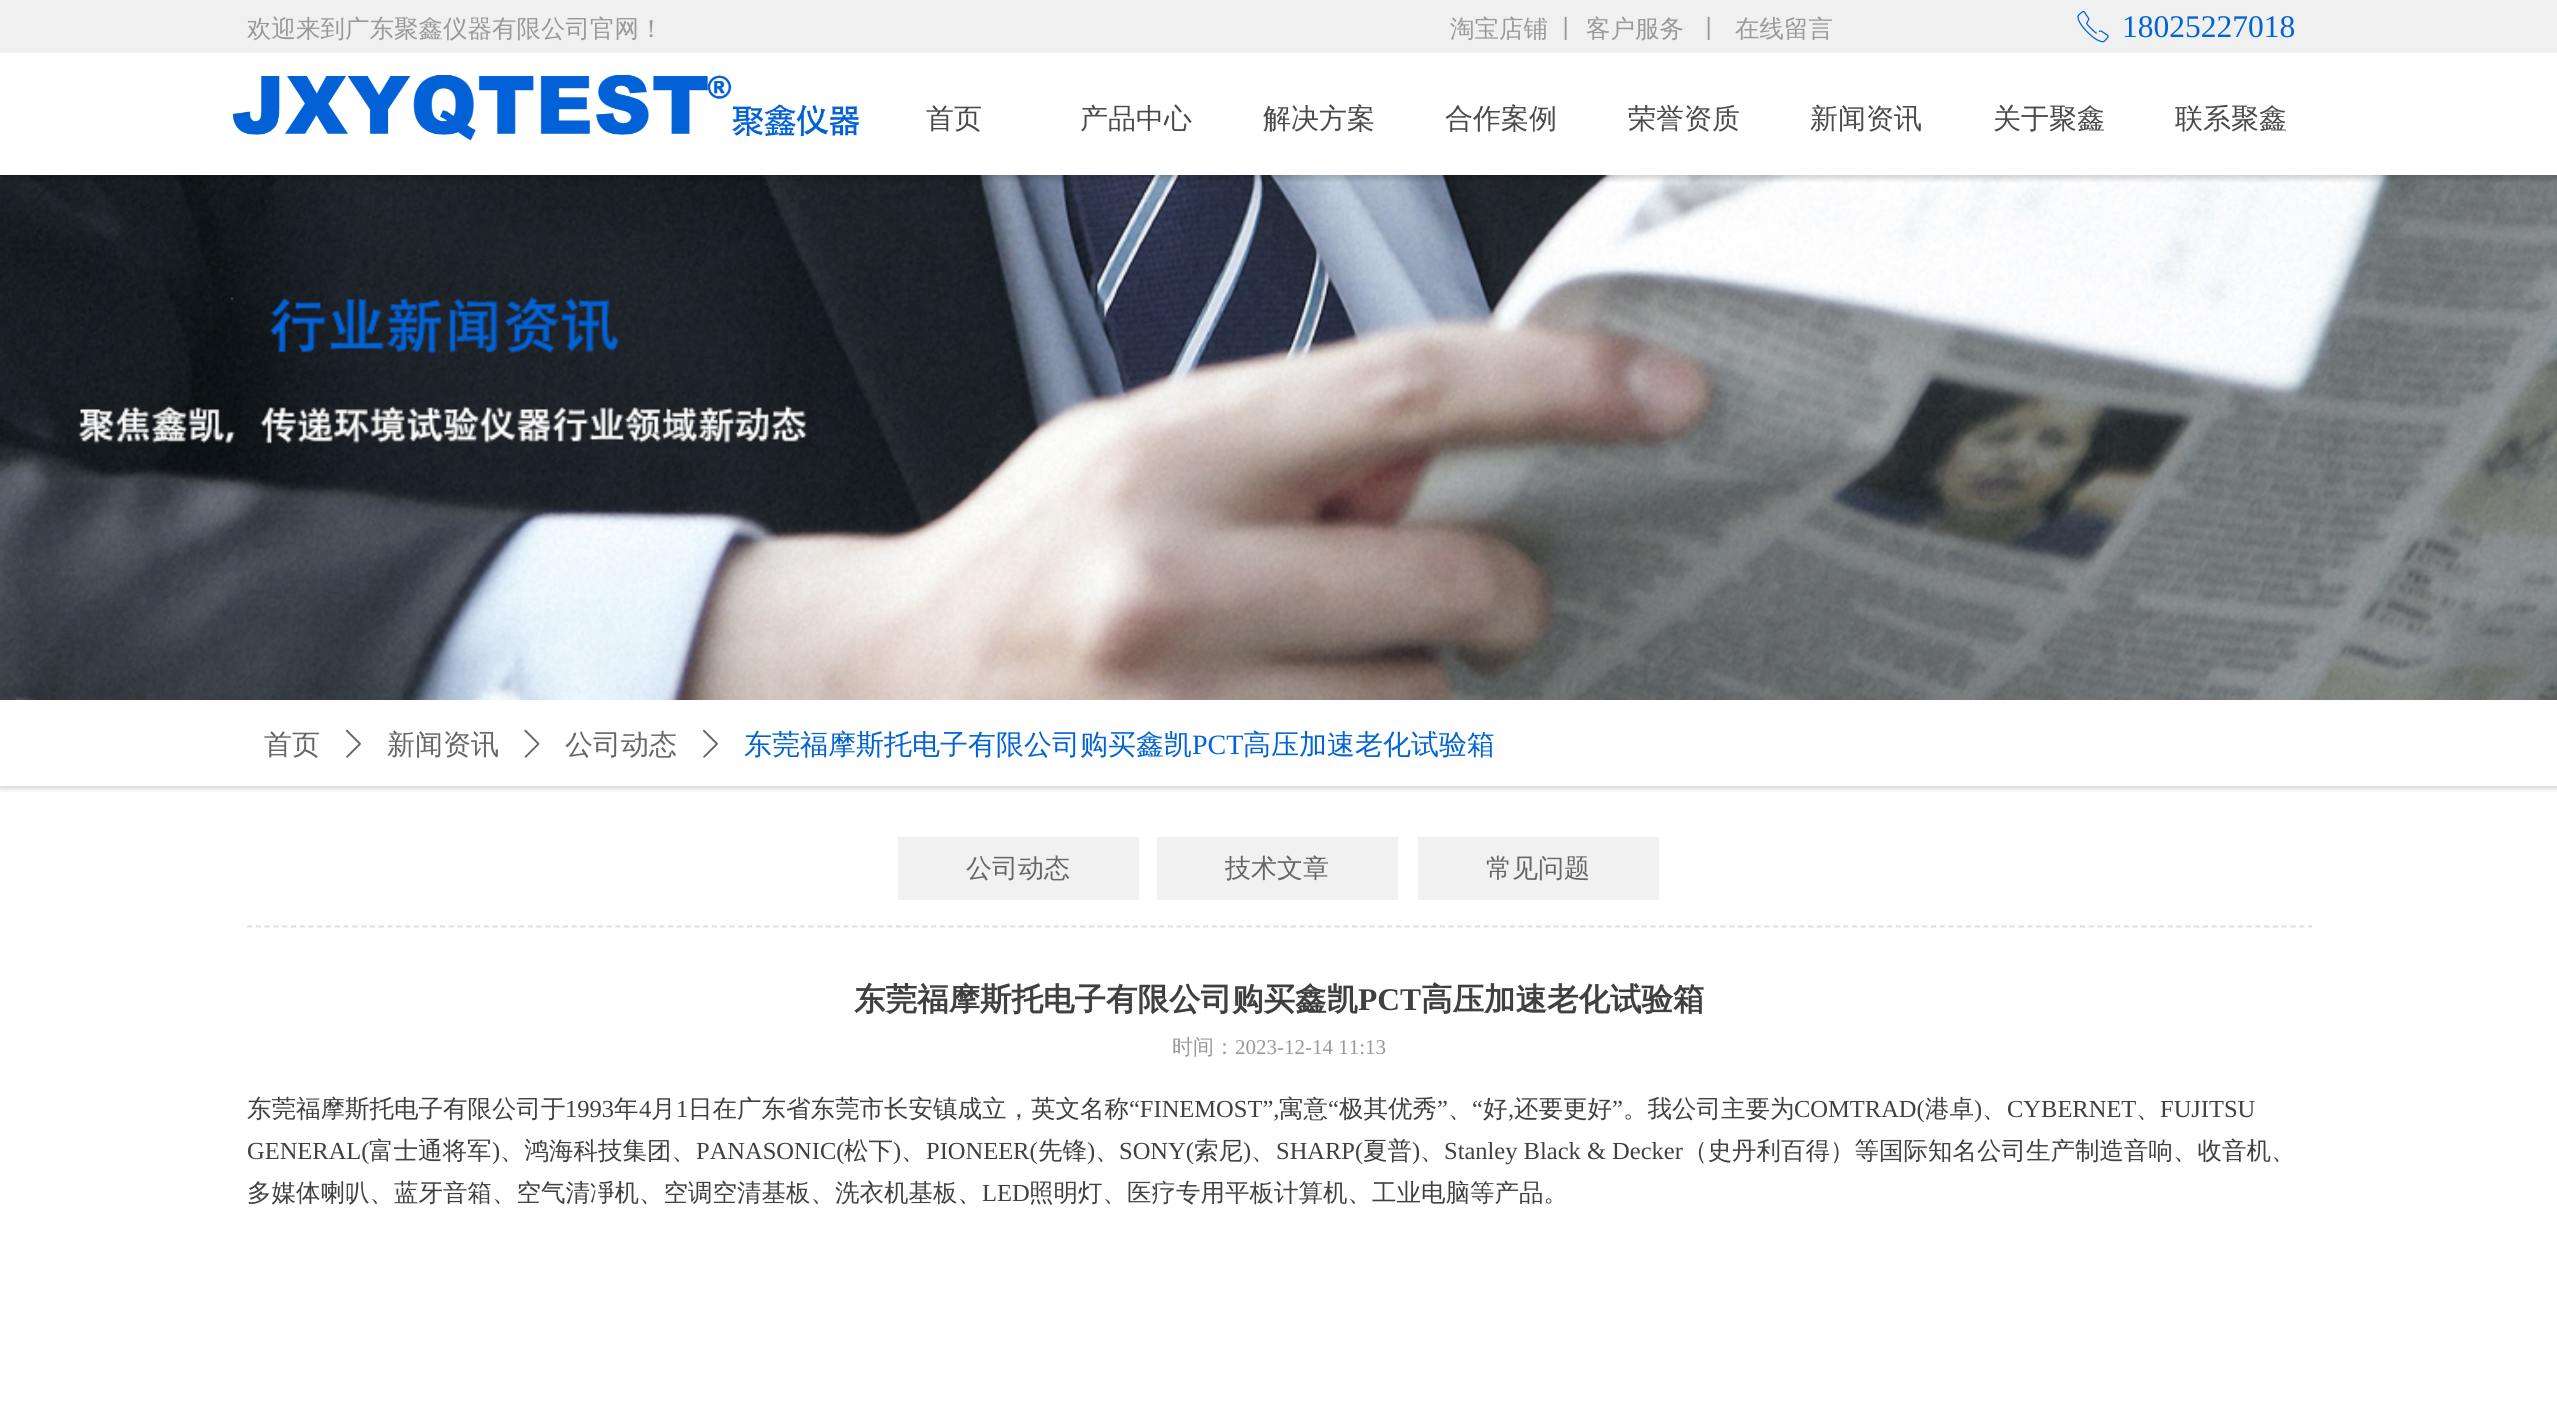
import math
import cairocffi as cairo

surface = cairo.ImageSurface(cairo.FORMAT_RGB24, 2557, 1401)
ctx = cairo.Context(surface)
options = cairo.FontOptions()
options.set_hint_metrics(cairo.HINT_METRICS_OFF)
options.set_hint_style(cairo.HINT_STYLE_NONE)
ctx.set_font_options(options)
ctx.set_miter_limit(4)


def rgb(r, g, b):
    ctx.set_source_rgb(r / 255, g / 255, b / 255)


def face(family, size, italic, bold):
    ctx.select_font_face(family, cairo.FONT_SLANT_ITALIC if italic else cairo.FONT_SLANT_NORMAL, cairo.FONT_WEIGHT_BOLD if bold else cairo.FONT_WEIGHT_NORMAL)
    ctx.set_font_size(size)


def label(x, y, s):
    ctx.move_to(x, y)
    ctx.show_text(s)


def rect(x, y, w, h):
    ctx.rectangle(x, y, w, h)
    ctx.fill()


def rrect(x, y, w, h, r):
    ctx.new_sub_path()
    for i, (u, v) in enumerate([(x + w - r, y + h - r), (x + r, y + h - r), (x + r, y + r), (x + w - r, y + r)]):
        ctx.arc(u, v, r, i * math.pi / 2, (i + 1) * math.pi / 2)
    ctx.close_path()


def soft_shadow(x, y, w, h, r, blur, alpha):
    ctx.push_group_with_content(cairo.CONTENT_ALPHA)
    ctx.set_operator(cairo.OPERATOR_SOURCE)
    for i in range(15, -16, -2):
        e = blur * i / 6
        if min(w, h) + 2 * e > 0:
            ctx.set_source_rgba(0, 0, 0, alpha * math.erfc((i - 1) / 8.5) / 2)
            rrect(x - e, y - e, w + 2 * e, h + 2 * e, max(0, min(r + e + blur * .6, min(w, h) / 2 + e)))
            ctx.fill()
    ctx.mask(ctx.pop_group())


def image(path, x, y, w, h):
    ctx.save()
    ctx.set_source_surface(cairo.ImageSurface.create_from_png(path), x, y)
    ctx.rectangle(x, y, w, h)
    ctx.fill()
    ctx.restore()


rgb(255, 255, 255)
ctx.paint()
rgb(0, 0, 0)
soft_shadow(0, 702, 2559, 87, 0, 2.5, 0.16)
image('image2.png', 0, 175, 2557, 525)
ctx.save()
ctx.rectangle(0, 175, 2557, 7)
ctx.clip()
soft_shadow(0, 4, 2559, 175, 0, 2.5, 0.16)
ctx.restore()
rgb(240, 240, 240)
rect(0, 0, 2557, 53)
face('WenQuanYi Zen Hei Medium', 24.5, 0, 0)
rgb(153, 153, 153)
label(247, 37, '欢迎来到广东聚鑫仪器有限公司官网！')
label(1450, 37, '淘宝店铺')
label(1554, 37, '丨')
label(1586, 37, '客户服务')
label(1697, 37, '丨')
label(1735, 37, '在线留言')
image('image0.png', 2077, 10, 32, 33)
face('Liberation Serif', 31.5, 0, 0)
rgb(2, 99, 214)
label(2122, 37, '18025227018')
image('image1.png', 233, 75, 627, 65)
face('WenQuanYi Zen Hei Medium', 28, 0, 0)
rgb(74, 74, 74)
label(926, 128, '首页')
label(1080, 128, '产品中心')
label(1263, 128, '解决方案')
label(1445, 128, '合作案例')
label(1628, 128, '荣誉资质')
label(1810, 128, '新闻资讯')
label(1993, 128, '关于聚鑫')
label(2175, 128, '联系聚鑫')
rgb(255, 255, 255)
rect(0, 700, 2557, 86)
rgb(102, 102, 102)
label(264, 754, '首页')
image('image3.png', 346, 729, 15, 29)
label(387, 754, '新闻资讯')
image('image4.png', 524, 729, 16, 29)
label(565, 754, '公司动态')
image('image3.png', 703, 729, 15, 29)
rgb(2, 99, 214)
label(744, 754, '东莞福摩斯托电子有限公司购买鑫凯')
face('Liberation Serif', 28, 0, 0)
label(1192, 754, 'PCT')
face('WenQuanYi Zen Hei Medium', 28, 0, 0)
label(1243, 754, '高压加速老化试验箱')
rgb(241, 241, 241)
rect(898, 837, 241, 63)
face('WenQuanYi Zen Hei Medium', 26, 0, 0)
rgb(102, 102, 102)
label(966, 877, '公司动态')
rgb(241, 241, 241)
rect(1157, 837, 241, 63)
rgb(102, 102, 102)
label(1225, 877, '技术文章')
rgb(241, 241, 241)
rect(1418, 837, 241, 63)
rgb(102, 102, 102)
label(1486, 877, '常见问题')
ctx.new_path()
ctx.move_to(247, 926.5)
ctx.line_to(2312, 926.5)
rgb(221, 221, 221)
ctx.set_line_width(1.8)
ctx.set_dash([5.25, 3.52])
ctx.stroke()
face('WenQuanYi Zen Hei', 31.5, 0, 1)
rgb(64, 64, 64)
label(854, 1010, '东莞福摩斯托电子有限公司购买鑫凯')
face('Liberation Serif', 31.5, 0, 1)
label(1358, 1010, 'PCT')
face('WenQuanYi Zen Hei', 31.5, 0, 1)
label(1421, 1010, '高压加速老化试验箱')
face('WenQuanYi Zen Hei Medium', 21, 0, 0)
rgb(153, 153, 153)
label(1172, 1054, '时间：')
face('Liberation Serif', 21, 0, 0)
label(1235, 1054, '2023-12-14 11:13')
face('WenQuanYi Zen Hei Medium', 24.5, 0, 0)
rgb(64, 64, 64)
label(247, 1117, '东莞福摩斯托电子有限公司于')
face('Liberation Serif', 24.5, 0, 0)
label(565, 1117, '1993')
face('WenQuanYi Zen Hei Medium', 24.5, 0, 0)
label(614, 1117, '年')
face('Liberation Serif', 24.5, 0, 0)
label(639, 1117, '4')
face('WenQuanYi Zen Hei Medium', 24.5, 0, 0)
label(651, 1117, '月')
face('Liberation Serif', 24.5, 0, 0)
label(676, 1117, '1')
face('WenQuanYi Zen Hei Medium', 24.5, 0, 0)
label(688, 1117, '日在广东省东莞市长安镇成立，英文名称')
face('Liberation Serif', 24.5, 0, 0)
label(1129, 1117, '“FINEMOST”,')
face('WenQuanYi Zen Hei Medium', 24.5, 0, 0)
label(1279, 1117, '寓意')
face('Liberation Serif', 24.5, 0, 0)
label(1328, 1117, '“')
face('WenQuanYi Zen Hei Medium', 24.5, 0, 0)
label(1339, 1117, '极其优秀')
face('Liberation Serif', 24.5, 0, 0)
label(1437, 1117, '”')
face('WenQuanYi Zen Hei Medium', 24.5, 0, 0)
label(1448, 1117, '、')
face('Liberation Serif', 24.5, 0, 0)
label(1472, 1117, '“')
face('WenQuanYi Zen Hei Medium', 24.5, 0, 0)
label(1483, 1117, '好')
face('Liberation Serif', 24.5, 0, 0)
label(1508, 1117, ',')
face('WenQuanYi Zen Hei Medium', 24.5, 0, 0)
label(1514, 1117, '还要更好')
face('Liberation Serif', 24.5, 0, 0)
label(1612, 1117, '”')
face('WenQuanYi Zen Hei Medium', 24.5, 0, 0)
label(1623, 1117, '。我公司主要为')
face('Liberation Serif', 24.5, 0, 0)
label(1794, 1117, 'COMTRAD(')
face('WenQuanYi Zen Hei Medium', 24.5, 0, 0)
label(1925, 1117, '港卓')
face('Liberation Serif', 24.5, 0, 0)
label(1974, 1117, ')')
face('WenQuanYi Zen Hei Medium', 24.5, 0, 0)
label(1982, 1117, '、')
face('Liberation Serif', 24.5, 0, 0)
label(2007, 1117, 'CYBERNET')
face('WenQuanYi Zen Hei Medium', 24.5, 0, 0)
label(2136, 1117, '、')
face('Liberation Serif', 24.5, 0, 0)
label(2160, 1117, 'FUJITSU')
label(247, 1159, 'GENERAL(')
face('WenQuanYi Zen Hei Medium', 24.5, 0, 0)
label(369, 1159, '富士通将军')
face('Liberation Serif', 24.5, 0, 0)
label(492, 1159, ')')
face('WenQuanYi Zen Hei Medium', 24.5, 0, 0)
label(500, 1159, '、鸿海科技集团、')
face('Liberation Serif', 24.5, 0, 0)
label(696, 1159, 'PANASONIC(')
face('WenQuanYi Zen Hei Medium', 24.5, 0, 0)
label(844, 1159, '松下')
face('Liberation Serif', 24.5, 0, 0)
label(893, 1159, ')')
face('WenQuanYi Zen Hei Medium', 24.5, 0, 0)
label(901, 1159, '、')
face('Liberation Serif', 24.5, 0, 0)
label(926, 1159, 'PIONEER(')
face('WenQuanYi Zen Hei Medium', 24.5, 0, 0)
label(1038, 1159, '先锋')
face('Liberation Serif', 24.5, 0, 0)
label(1087, 1159, ')')
face('WenQuanYi Zen Hei Medium', 24.5, 0, 0)
label(1095, 1159, '、')
face('Liberation Serif', 24.5, 0, 0)
label(1119, 1159, 'SONY(')
face('WenQuanYi Zen Hei Medium', 24.5, 0, 0)
label(1194, 1159, '索尼')
face('Liberation Serif', 24.5, 0, 0)
label(1243, 1159, ')')
face('WenQuanYi Zen Hei Medium', 24.5, 0, 0)
label(1251, 1159, '、')
face('Liberation Serif', 24.5, 0, 0)
label(1276, 1159, 'SHARP(')
face('WenQuanYi Zen Hei Medium', 24.5, 0, 0)
label(1363, 1159, '夏普')
face('Liberation Serif', 24.5, 0, 0)
label(1412, 1159, ')')
face('WenQuanYi Zen Hei Medium', 24.5, 0, 0)
label(1420, 1159, '、')
face('Liberation Serif', 24.5, 0, 0)
label(1444, 1159, 'Stanley Black & Decker')
face('WenQuanYi Zen Hei Medium', 24.5, 0, 0)
label(1683, 1159, '（史丹利百得）等国际知名公司生产制造音响、收音机、')
label(247, 1201, '多媒体喇叭、蓝牙音箱、空气清凈机、空调空清基板、洗衣机基板、')
face('Liberation Serif', 24.5, 0, 0)
label(982, 1201, 'LED')
face('WenQuanYi Zen Hei Medium', 24.5, 0, 0)
label(1029, 1201, '照明灯、医疗专用平板计算机、工业电脑等产品。')
surface.write_to_png('render.png')
